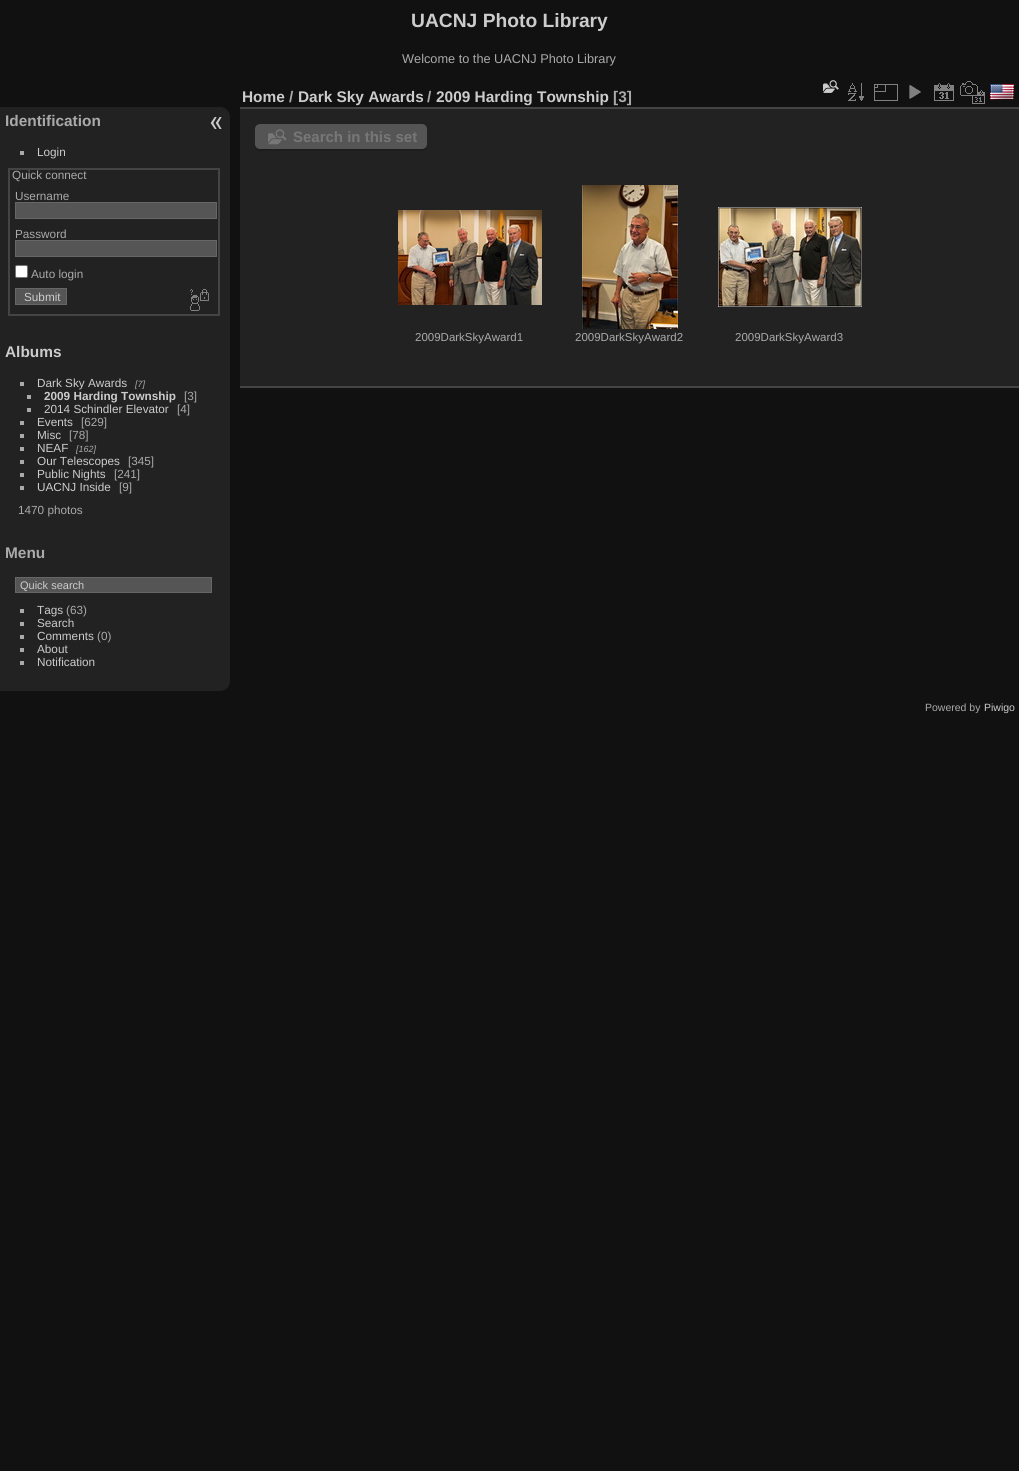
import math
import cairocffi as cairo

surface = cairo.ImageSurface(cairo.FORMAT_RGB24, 1019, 1471)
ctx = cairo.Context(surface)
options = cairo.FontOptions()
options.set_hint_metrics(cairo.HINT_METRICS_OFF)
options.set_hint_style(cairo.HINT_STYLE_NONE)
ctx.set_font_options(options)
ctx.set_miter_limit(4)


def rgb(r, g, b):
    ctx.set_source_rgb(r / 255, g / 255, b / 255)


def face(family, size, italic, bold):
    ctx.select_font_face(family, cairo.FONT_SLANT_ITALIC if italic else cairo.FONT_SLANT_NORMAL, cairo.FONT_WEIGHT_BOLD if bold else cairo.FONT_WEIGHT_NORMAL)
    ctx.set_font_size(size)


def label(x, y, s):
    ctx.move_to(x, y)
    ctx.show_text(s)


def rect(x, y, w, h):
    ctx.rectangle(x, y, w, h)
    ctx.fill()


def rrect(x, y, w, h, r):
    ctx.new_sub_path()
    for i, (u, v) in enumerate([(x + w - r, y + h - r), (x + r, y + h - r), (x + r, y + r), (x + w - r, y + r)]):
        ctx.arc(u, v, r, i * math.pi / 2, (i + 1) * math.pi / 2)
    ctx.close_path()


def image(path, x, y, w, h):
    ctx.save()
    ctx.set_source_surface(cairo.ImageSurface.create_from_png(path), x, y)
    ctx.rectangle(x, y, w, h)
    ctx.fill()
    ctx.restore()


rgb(17, 17, 17)
ctx.paint()
face('Liberation Sans', 19.25, 0, 1)
rgb(204, 204, 204)
label(411, 27, 'UACNJ Photo Library')
face('Liberation Sans', 12.75, 0, 0)
rgb(170, 170, 170)
label(402, 63, 'Welcome to the UACNJ Photo Library')
rgb(34, 34, 34)
ctx.new_path()
ctx.move_to(0, 107)
ctx.line_to(220, 107)
ctx.curve_to(225.5, 107, 230, 111.5, 230, 117)
ctx.line_to(230, 681)
ctx.curve_to(230, 686.5, 225.5, 691, 220, 691)
ctx.line_to(0, 691)
ctx.close_path()
ctx.fill()
face('Liberation Sans', 15.4, 0, 1)
rgb(170, 170, 170)
label(5, 126, 'Identification')
rect(20, 151, 4, 4)
face('Liberation Sans', 11.75, 0, 0)
rgb(204, 204, 204)
label(37, 156, 'Login')
ctx.rectangle(9, 169, 210, 146)
rgb(68, 68, 68)
ctx.stroke()
rgb(170, 170, 170)
label(12, 179, 'Quick connect')
label(15, 200, 'Username')
rgb(85, 85, 85)
ctx.rectangle(15.5, 202.5, 201, 16)
ctx.fill_preserve()
rgb(102, 102, 102)
ctx.set_line_width(1)
ctx.stroke()
rgb(170, 170, 170)
label(15, 238, 'Password')
rgb(85, 85, 85)
ctx.rectangle(15.5, 240.5, 201, 16)
ctx.fill_preserve()
rgb(102, 102, 102)
ctx.stroke()
rgb(255, 255, 255)
rrect(15.5, 265.5, 12, 12, 1.5)
ctx.fill_preserve()
rgb(118, 118, 118)
ctx.stroke()
rgb(170, 170, 170)
label(31, 278, 'Auto login')
rgb(85, 85, 85)
ctx.rectangle(15.5, 288.5, 51, 16)
ctx.fill_preserve()
rgb(102, 102, 102)
ctx.stroke()
rgb(204, 204, 204)
label(24, 301, 'Submit')
image('image0.png', 190, 289, 19, 22)
face('Liberation Sans', 15.4, 0, 1)
label(5, 357, 'Albums')
rgb(170, 170, 170)
rect(20, 382, 4, 4)
face('Liberation Sans', 11.75, 0, 0)
rgb(204, 204, 204)
label(37, 387, 'Dark Sky Awards')
face('Liberation Sans', 9, 1, 0)
rgb(170, 170, 170)
label(135, 387, '[7]')
rect(27, 395, 4, 4)
face('Liberation Sans', 11.75, 0, 1)
rgb(204, 204, 204)
label(44, 400, '2009 Harding Township')
face('Liberation Sans', 11.75, 0, 0)
rgb(170, 170, 170)
label(184, 400, '[3]')
rect(27, 408, 4, 4)
rgb(204, 204, 204)
label(44, 413, '2014 Schindler Elevator')
rgb(170, 170, 170)
label(177, 413, '[4]')
rect(20, 421, 4, 4)
rgb(204, 204, 204)
label(37, 426, 'Events')
rgb(170, 170, 170)
label(81, 426, '[629]')
rect(20, 434, 4, 4)
rgb(204, 204, 204)
label(37, 439, 'Misc')
rgb(170, 170, 170)
label(69, 439, '[78]')
rect(20, 447, 4, 4)
rgb(204, 204, 204)
label(37, 452, 'NEAF')
face('Liberation Sans', 9, 1, 0)
rgb(170, 170, 170)
label(76, 452, '[162]')
rect(20, 460, 4, 4)
face('Liberation Sans', 11.75, 0, 0)
rgb(204, 204, 204)
label(37, 465, 'Our Telescopes')
rgb(170, 170, 170)
label(128, 465, '[345]')
rect(20, 473, 4, 4)
rgb(204, 204, 204)
label(37, 478, 'Public Nights')
rgb(170, 170, 170)
label(114, 478, '[241]')
rect(20, 486, 4, 4)
rgb(204, 204, 204)
label(37, 491, 'UACNJ Inside')
rgb(170, 170, 170)
label(119, 491, '[9]')
label(18, 514, '1470 photos')
face('Liberation Sans', 15.4, 0, 1)
label(5, 558, 'Menu')
rgb(85, 85, 85)
ctx.rectangle(15.5, 577.5, 196, 15)
ctx.fill_preserve()
rgb(102, 102, 102)
ctx.stroke()
face('Liberation Sans', 11, 0, 0)
rgb(204, 204, 204)
label(20, 589, 'Quick search')
rgb(170, 170, 170)
rect(20, 609, 4, 4)
face('Liberation Sans', 11.75, 0, 0)
rgb(204, 204, 204)
label(37, 614, 'Tags')
rgb(170, 170, 170)
label(66, 614, '(63)')
rect(20, 622, 4, 4)
rgb(204, 204, 204)
label(37, 627, 'Search')
rgb(170, 170, 170)
rect(20, 635, 4, 4)
rgb(204, 204, 204)
label(37, 640, 'Comments')
rgb(170, 170, 170)
label(97, 640, '(0)')
rect(20, 648, 4, 4)
rgb(204, 204, 204)
label(37, 653, 'About')
rgb(170, 170, 170)
rect(20, 661, 4, 4)
rgb(204, 204, 204)
label(37, 666, 'Notification')
image('image1.png', 210, 117, 12, 12)
rgb(34, 34, 34)
rect(240, 109, 779, 277)
rgb(68, 68, 68)
rect(240, 386, 779, 2)
rect(240, 107, 779, 2)
face('Liberation Sans', 15.4, 0, 1)
rgb(204, 204, 204)
label(242, 102, 'Home')
rgb(170, 170, 170)
label(289, 102, '/')
rgb(204, 204, 204)
label(298, 102, 'Dark Sky Awards')
rgb(170, 170, 170)
label(427, 102, '/')
rgb(204, 204, 204)
label(436, 102, '2009 Harding Township')
rgb(170, 170, 170)
label(613, 102, '[3]')
image('image2.png', 823, 80, 16, 13)
image('image3.png', 848, 83, 16, 18)
image('image4.png', 874, 84, 24, 17)
image('image5.png', 909, 85, 12, 14)
image('image6.png', 934, 83, 20, 18)
image('image7.png', 960, 81, 25, 23)
image('image8.png', 990, 84, 24, 16)
rgb(29, 29, 29)
ctx.new_path()
ctx.move_to(255, 144)
ctx.line_to(255, 146)
ctx.curve_to(255, 149, 257, 151, 260, 151)
ctx.line_to(422, 151)
ctx.curve_to(425, 151, 427, 149, 427, 146)
ctx.line_to(427, 144)
ctx.curve_to(427, 147, 425, 149, 422, 149)
ctx.line_to(260, 149)
ctx.curve_to(257, 149, 255, 147, 255, 144)
ctx.close_path()
ctx.fill()
rgb(85, 85, 85)
rrect(255, 124, 172, 25, 5)
ctx.fill()
image('image9.png', 268, 129, 19, 16)
face('Liberation Sans', 15, 0, 1)
rgb(119, 119, 119)
label(293, 142, 'Search in this set')
image('image10.png', 398, 210, 144, 95)
face('Liberation Sans', 11.5, 0, 0)
rgb(170, 170, 170)
label(415, 341, '2009DarkSkyAward1')
image('image11.png', 582, 185, 96, 144)
label(575, 341, '2009DarkSkyAward2')
image('image12.png', 718, 207, 144, 100)
label(735, 341, '2009DarkSkyAward3')
face('Liberation Sans', 10.5, 0, 0)
label(925, 711, 'Powered by')
rgb(204, 204, 204)
label(984, 711, 'Piwigo')
surface.write_to_png('render.png')
